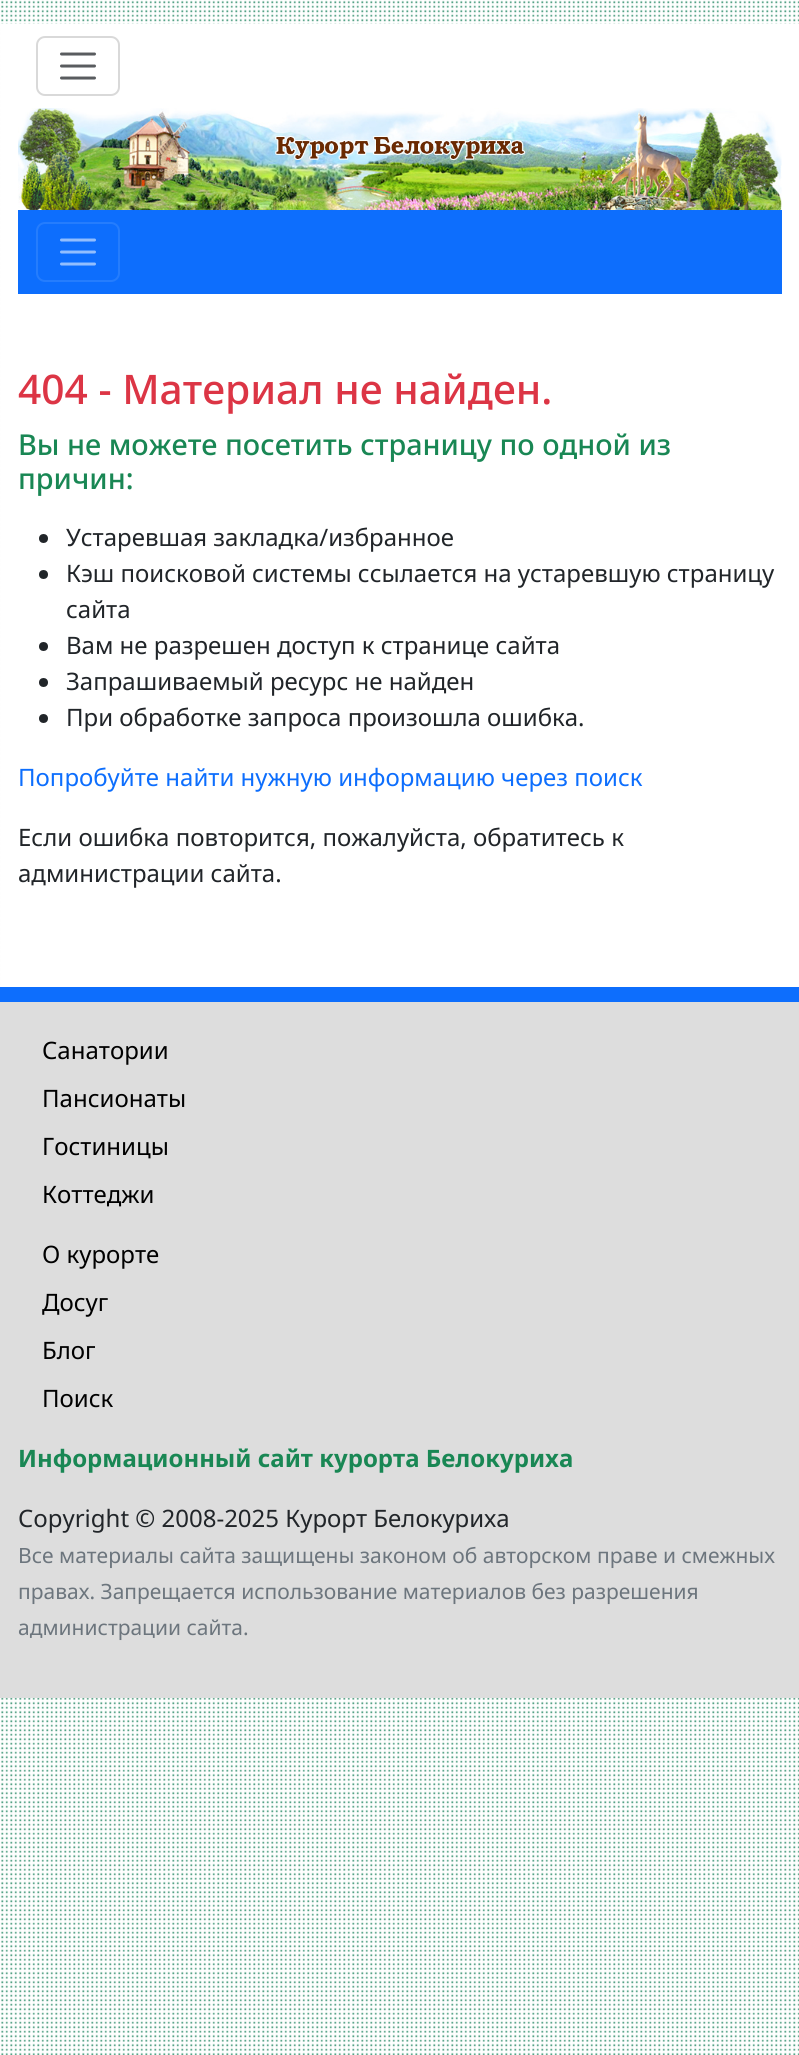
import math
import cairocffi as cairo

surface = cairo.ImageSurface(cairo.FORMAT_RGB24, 799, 2055)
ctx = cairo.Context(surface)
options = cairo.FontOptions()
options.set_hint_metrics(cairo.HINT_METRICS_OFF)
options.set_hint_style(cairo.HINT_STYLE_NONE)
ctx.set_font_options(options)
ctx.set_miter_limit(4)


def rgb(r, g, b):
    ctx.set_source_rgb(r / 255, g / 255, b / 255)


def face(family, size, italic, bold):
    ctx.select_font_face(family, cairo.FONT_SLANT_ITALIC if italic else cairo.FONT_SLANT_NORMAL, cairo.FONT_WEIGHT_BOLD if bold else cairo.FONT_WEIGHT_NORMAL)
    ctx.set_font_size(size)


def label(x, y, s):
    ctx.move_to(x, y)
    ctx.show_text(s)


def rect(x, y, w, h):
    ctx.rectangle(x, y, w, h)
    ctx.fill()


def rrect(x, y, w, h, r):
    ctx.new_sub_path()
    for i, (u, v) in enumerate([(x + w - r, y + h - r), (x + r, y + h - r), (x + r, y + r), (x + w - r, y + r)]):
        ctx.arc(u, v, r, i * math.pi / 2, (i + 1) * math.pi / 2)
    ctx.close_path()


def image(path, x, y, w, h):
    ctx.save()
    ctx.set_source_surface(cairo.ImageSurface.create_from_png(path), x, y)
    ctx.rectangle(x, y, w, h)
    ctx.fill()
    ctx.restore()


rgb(255, 255, 255)
ctx.paint()
image('image0.png', 0, 0, 799, 2055)
rgb(255, 255, 255)
rect(1, 24, 798, 963)
rrect(37, 37, 82, 58, 8)
rgb(217, 217, 217)
ctx.stroke()
ctx.new_path()
ctx.move_to(61.5, 54)
ctx.line_to(94.5, 54)
ctx.move_to(61.5, 66)
ctx.line_to(94.5, 66)
ctx.move_to(61.5, 78)
ctx.line_to(94.5, 78)
rgb(89, 92, 95)
ctx.set_line_width(3)
ctx.set_line_cap(cairo.LINE_CAP_ROUND)
ctx.stroke()
image('image1.png', 18, 108, 764, 102)
rgb(13, 110, 253)
rect(18, 210, 764, 84)
rrect(37, 223, 82, 58, 8)
rgb(37, 125, 253)
ctx.set_line_width(2)
ctx.set_line_cap(cairo.LINE_CAP_BUTT)
ctx.stroke()
ctx.new_path()
ctx.move_to(61.5, 240)
ctx.line_to(94.5, 240)
ctx.move_to(61.5, 252)
ctx.line_to(94.5, 252)
ctx.move_to(61.5, 264)
ctx.line_to(94.5, 264)
rgb(146, 190, 254)
ctx.set_line_width(3)
ctx.set_line_cap(cairo.LINE_CAP_ROUND)
ctx.stroke()
face('Noto Sans Medium', 40.75, 0, 0)
rgb(220, 53, 69)
label(18, 404, '404 - Материал не найден.')
face('Noto Sans Medium', 28.8, 0, 0)
rgb(25, 135, 84)
label(18, 455, 'Вы не можете посетить страницу по одной из')
label(18, 489, 'причин:')
rgb(33, 37, 41)
ctx.new_path()
ctx.arc(43.5, 538.5, 4.5, 0, 2 * math.pi)
ctx.fill()
face('Noto Sans', 24, 0, 0)
label(66, 546, 'Устаревшая закладка/избранное')
ctx.new_path()
ctx.arc(43.5, 574.5, 4.5, 0, 2 * math.pi)
ctx.fill()
label(66, 582, 'Кэш поисковой системы ссылается на устаревшую страницу')
label(66, 618, 'сайта')
ctx.new_path()
ctx.arc(43.5, 646.5, 4.5, 0, 2 * math.pi)
ctx.fill()
label(66, 654, 'Вам не разрешен доступ к странице сайта')
ctx.new_path()
ctx.arc(43.5, 682.5, 4.5, 0, 2 * math.pi)
ctx.fill()
label(66, 690, 'Запрашиваемый ресурс не найден')
ctx.new_path()
ctx.arc(43.5, 718.5, 4.5, 0, 2 * math.pi)
ctx.fill()
label(66, 726, 'При обработке запроса произошла ошибка.')
rgb(13, 110, 253)
label(18, 786, 'Попробуйте найти нужную информацию через поиск')
rgb(33, 37, 41)
label(18, 846, 'Если ошибка повторится, пожалуйста, обратитесь к')
label(18, 882, 'администрации сайта.')
rgb(221, 221, 221)
rect(0, 1002, 799, 696)
rgb(13, 110, 253)
rect(0, 987, 799, 15)
rgb(0, 0, 0)
label(42, 1059, 'Санатории')
label(42, 1107, 'Пансионаты')
label(42, 1155, 'Гостиницы')
label(42, 1203, 'Коттеджи')
label(42, 1263, 'О курорте')
label(42, 1311, 'Досуг')
label(42, 1359, 'Блог')
label(42, 1407, 'Поиск')
face('Noto Sans', 24, 0, 1)
rgb(25, 135, 84)
label(18, 1467, 'Информационный сайт курорта Белокуриха')
face('Noto Sans', 24, 0, 0)
rgb(33, 37, 41)
label(18, 1527, 'Copyright © 2008-2025 Курорт Белокуриха')
face('Noto Sans', 21, 0, 0)
rgb(108, 117, 125)
label(18, 1563, 'Все материалы сайта защищены законом об авторском праве и смежных')
label(18, 1599, 'правах. Запрещается использование материалов без разрешения')
label(18, 1635, 'администрации сайта.')
surface.write_to_png('render.png')
